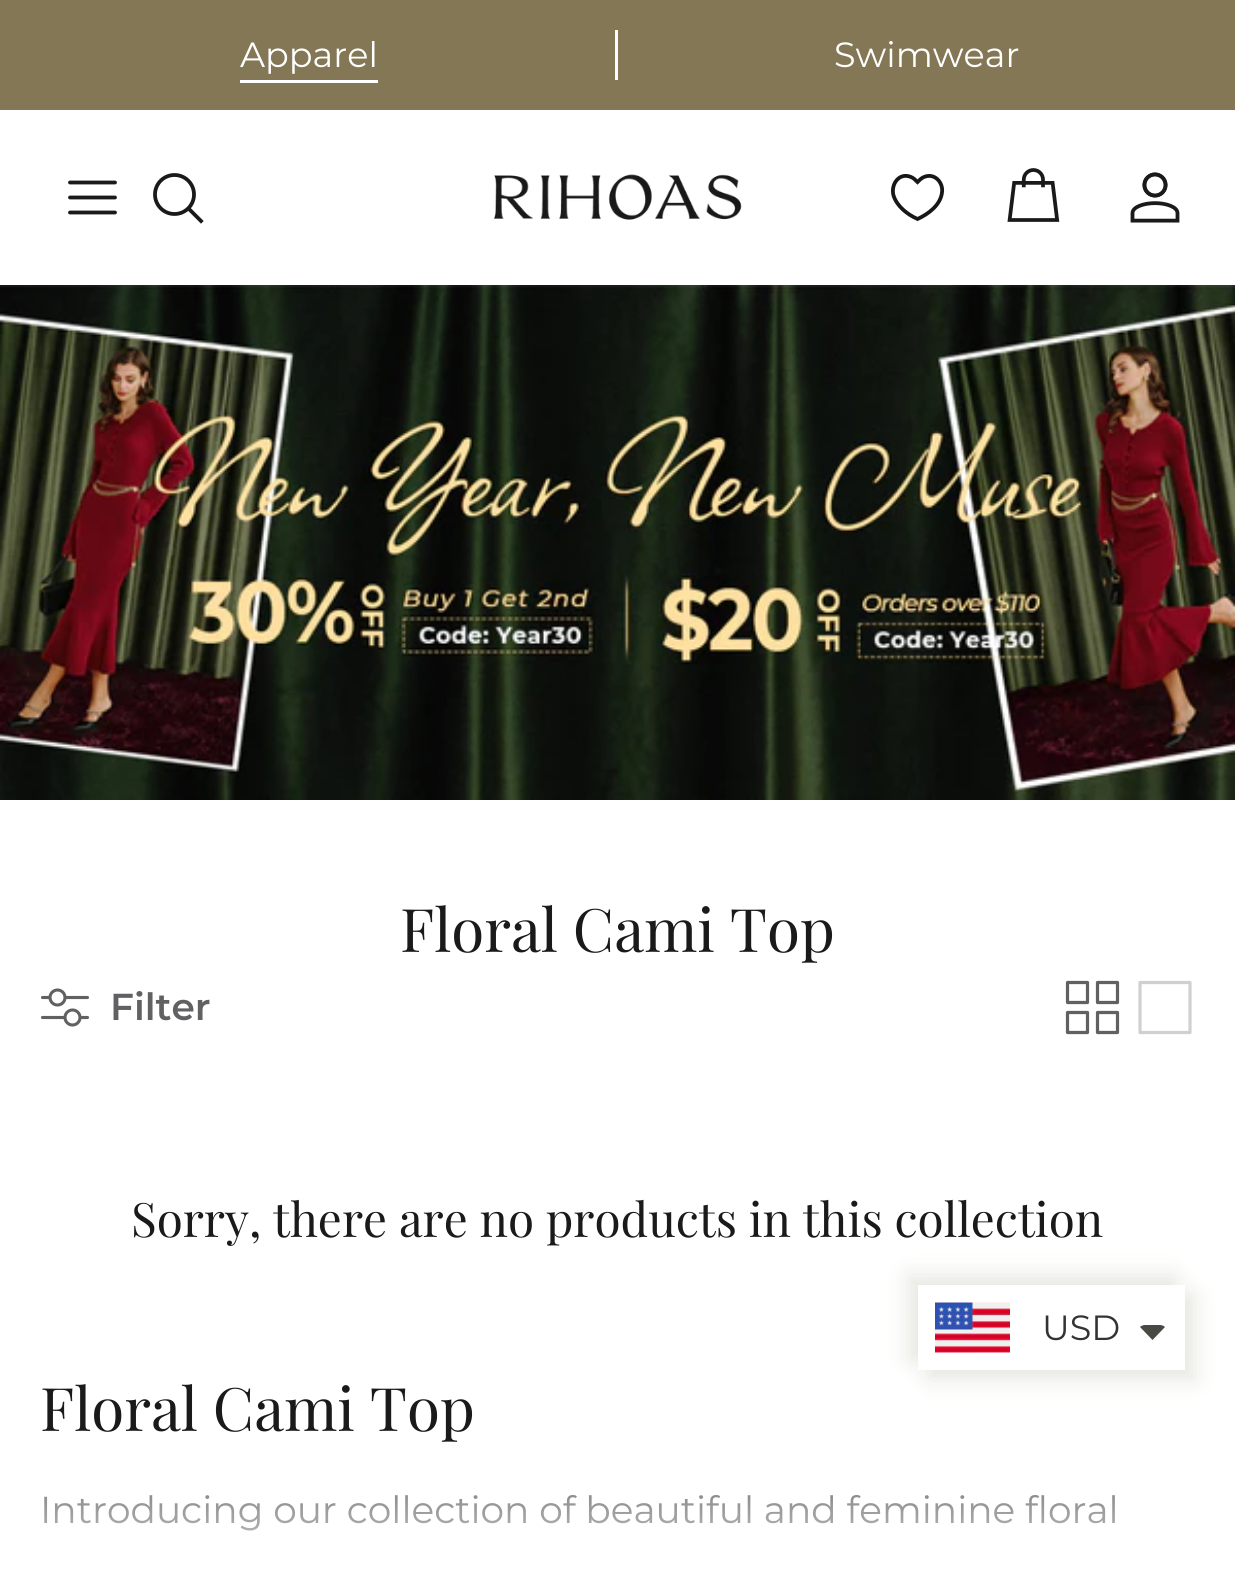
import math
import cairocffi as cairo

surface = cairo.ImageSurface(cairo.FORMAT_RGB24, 1235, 1576)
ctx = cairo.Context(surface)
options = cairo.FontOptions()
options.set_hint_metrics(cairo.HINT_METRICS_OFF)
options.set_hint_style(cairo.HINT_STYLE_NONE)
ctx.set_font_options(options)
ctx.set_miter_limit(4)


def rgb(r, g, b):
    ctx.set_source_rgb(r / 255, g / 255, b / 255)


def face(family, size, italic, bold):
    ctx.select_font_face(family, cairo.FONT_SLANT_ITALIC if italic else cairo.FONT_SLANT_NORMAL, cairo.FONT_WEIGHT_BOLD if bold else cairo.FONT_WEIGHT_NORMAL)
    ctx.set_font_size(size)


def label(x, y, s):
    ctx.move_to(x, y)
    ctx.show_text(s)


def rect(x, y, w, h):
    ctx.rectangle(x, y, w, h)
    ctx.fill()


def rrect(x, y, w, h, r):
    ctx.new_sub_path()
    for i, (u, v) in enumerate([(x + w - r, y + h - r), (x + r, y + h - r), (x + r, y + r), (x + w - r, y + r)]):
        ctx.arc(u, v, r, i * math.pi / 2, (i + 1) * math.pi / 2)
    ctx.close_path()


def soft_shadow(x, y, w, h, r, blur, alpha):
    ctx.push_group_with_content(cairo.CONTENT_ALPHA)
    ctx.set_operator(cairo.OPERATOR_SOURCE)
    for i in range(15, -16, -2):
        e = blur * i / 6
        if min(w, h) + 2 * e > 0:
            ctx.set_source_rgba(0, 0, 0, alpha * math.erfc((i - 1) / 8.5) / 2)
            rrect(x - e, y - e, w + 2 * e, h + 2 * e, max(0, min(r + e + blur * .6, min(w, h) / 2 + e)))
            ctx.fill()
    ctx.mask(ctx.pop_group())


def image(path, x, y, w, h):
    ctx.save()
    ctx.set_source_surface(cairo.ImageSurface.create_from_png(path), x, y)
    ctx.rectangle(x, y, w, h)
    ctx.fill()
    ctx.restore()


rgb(255, 255, 255)
ctx.paint()
rgb(132, 119, 86)
rect(0, 0, 1235, 110)
face('Montserrat', 35, 0, 0)
rgb(255, 255, 255)
label(240, 67, 'Apparel')
rect(240, 80, 138, 3)
rect(615, 30, 3, 50)
label(834, 67, 'Swimwear')
ctx.new_path()
ctx.move_to(70, 197.5)
ctx.line_to(115, 197.5)
ctx.move_to(70, 182.5)
ctx.line_to(115, 182.5)
ctx.move_to(70, 212.5)
ctx.line_to(115, 212.5)
rgb(26, 26, 26)
ctx.set_line_width(3.8)
ctx.set_line_cap(cairo.LINE_CAP_ROUND)
ctx.set_line_join(cairo.LINE_JOIN_ROUND)
ctx.stroke()
ctx.arc(174.5, 194.5, 19.5, 0, 2 * math.pi)
ctx.set_line_cap(cairo.LINE_CAP_BUTT)
ctx.set_line_join(cairo.LINE_JOIN_MITER)
ctx.stroke()
ctx.new_path()
ctx.move_to(190, 210)
ctx.line_to(201, 221)
ctx.set_line_cap(cairo.LINE_CAP_SQUARE)
ctx.stroke()
image('image0.png', 493, 174, 249, 46)
ctx.new_path()
ctx.move_to(917.5, 219)
ctx.curve_to(907.5, 214.5, 897, 206.5, 893.5, 195.5)
ctx.curve_to(890.5, 184.5, 899, 172, 911, 177)
ctx.curve_to(913.5, 178, 915.5, 180, 917.5, 182)
ctx.curve_to(919.5, 180, 921.5, 178, 924, 177)
ctx.curve_to(934.5, 172.5, 943.5, 182.5, 942, 192.5)
ctx.curve_to(940.5, 205, 928.5, 214, 917.5, 219)
ctx.close_path()
rgb(23, 23, 23)
ctx.set_line_cap(cairo.LINE_CAP_BUTT)
ctx.stroke()
image('image1.png', 1007, 168, 53, 54)
image('image2.png', 1130, 172, 50, 51)
image('image3.png', 0, 285, 1235, 515)
face('Playfair Display', 60, 0, 0)
rgb(26, 26, 26)
label(400, 952, 'Floral Cami Top')
ctx.new_path()
ctx.move_to(42.5, 997.5)
ctx.line_to(87.5, 997.5)
ctx.move_to(42.5, 1017.5)
ctx.line_to(87.5, 1017.5)
rgb(97, 97, 99)
ctx.set_line_width(3.1)
ctx.set_line_cap(cairo.LINE_CAP_ROUND)
ctx.set_line_join(cairo.LINE_JOIN_ROUND)
ctx.stroke()
rgb(255, 255, 255)
ctx.arc(57.5, 997.5, 7.5, 0, 2 * math.pi)
ctx.fill_preserve()
rgb(97, 97, 99)
ctx.set_line_cap(cairo.LINE_CAP_BUTT)
ctx.set_line_join(cairo.LINE_JOIN_MITER)
ctx.stroke()
rgb(255, 255, 255)
ctx.arc(72.5, 1017.5, 7.5, 0, 2 * math.pi)
ctx.fill_preserve()
rgb(97, 97, 99)
ctx.stroke()
face('Montserrat SemiBold', 37.5, 0, 0)
label(110, 1020, 'Filter')
image('image4.png', 1065, 980, 55, 55)
ctx.new_path()
ctx.move_to(1140, 982.5)
ctx.line_to(1190, 982.5)
ctx.line_to(1190, 1032.5)
ctx.line_to(1140, 1032.5)
ctx.line_to(1140, 982.5)
rgb(208, 208, 208)
ctx.set_line_width(3.2)
ctx.set_line_cap(cairo.LINE_CAP_ROUND)
ctx.set_line_join(cairo.LINE_JOIN_ROUND)
ctx.stroke()
face('Playfair Display', 47.5, 0, 0)
rgb(26, 26, 26)
label(131, 1237, 'Sorry, there are no products in this collection')
face('Playfair Display', 60, 0, 0)
label(40, 1431, 'Floral Cami Top')
face('Montserrat', 37.5, 0, 0)
rgb(97, 97, 99)
label(40, 1523, 'Introducing our collection of beautiful and feminine floral')
gradient = cairo.LinearGradient(618, 1445, 618, 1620)
gradient.add_color_stop_rgba(0, 1, 1, 1, 0)
gradient.add_color_stop_rgba(1, 1, 1, 1, 1)
ctx.set_source(gradient)
rect(44, 1495, 1071, 36)
ctx.save()
ctx.set_fill_rule(cairo.FILL_RULE_EVEN_ODD)
ctx.new_path()
ctx.move_to(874, 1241)
ctx.line_to(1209, 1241)
ctx.line_to(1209, 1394)
ctx.line_to(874, 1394)
ctx.close_path()
ctx.move_to(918, 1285)
ctx.line_to(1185, 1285)
ctx.line_to(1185, 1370)
ctx.line_to(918, 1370)
ctx.close_path()
ctx.clip()
rgb(232, 232, 226)
soft_shadow(908, 1275, 267, 85, 0, 11, 1)
ctx.restore()
ctx.save()
ctx.set_fill_rule(cairo.FILL_RULE_EVEN_ODD)
ctx.new_path()
ctx.move_to(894, 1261)
ctx.line_to(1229, 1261)
ctx.line_to(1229, 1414)
ctx.line_to(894, 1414)
ctx.close_path()
ctx.move_to(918, 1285)
ctx.line_to(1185, 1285)
ctx.line_to(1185, 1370)
ctx.line_to(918, 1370)
ctx.close_path()
ctx.clip()
rgb(232, 232, 226)
soft_shadow(928, 1295, 267, 85, 0, 11, 1)
ctx.restore()
image('image5.png', 935, 1302, 75, 51)
face('Montserrat', 35, 0, 0)
rgb(51, 51, 51)
label(1042, 1340, 'USD')
rgb(71, 73, 66)
ctx.new_path()
ctx.move_to(1145, 1325)
ctx.curve_to(1143, 1325, 1141, 1326, 1140, 1327)
ctx.line_to(1152.5, 1340)
ctx.line_to(1165, 1327)
ctx.curve_to(1164, 1326, 1162, 1325, 1160, 1325)
ctx.close_path()
ctx.fill()
surface.write_to_png('render.png')
